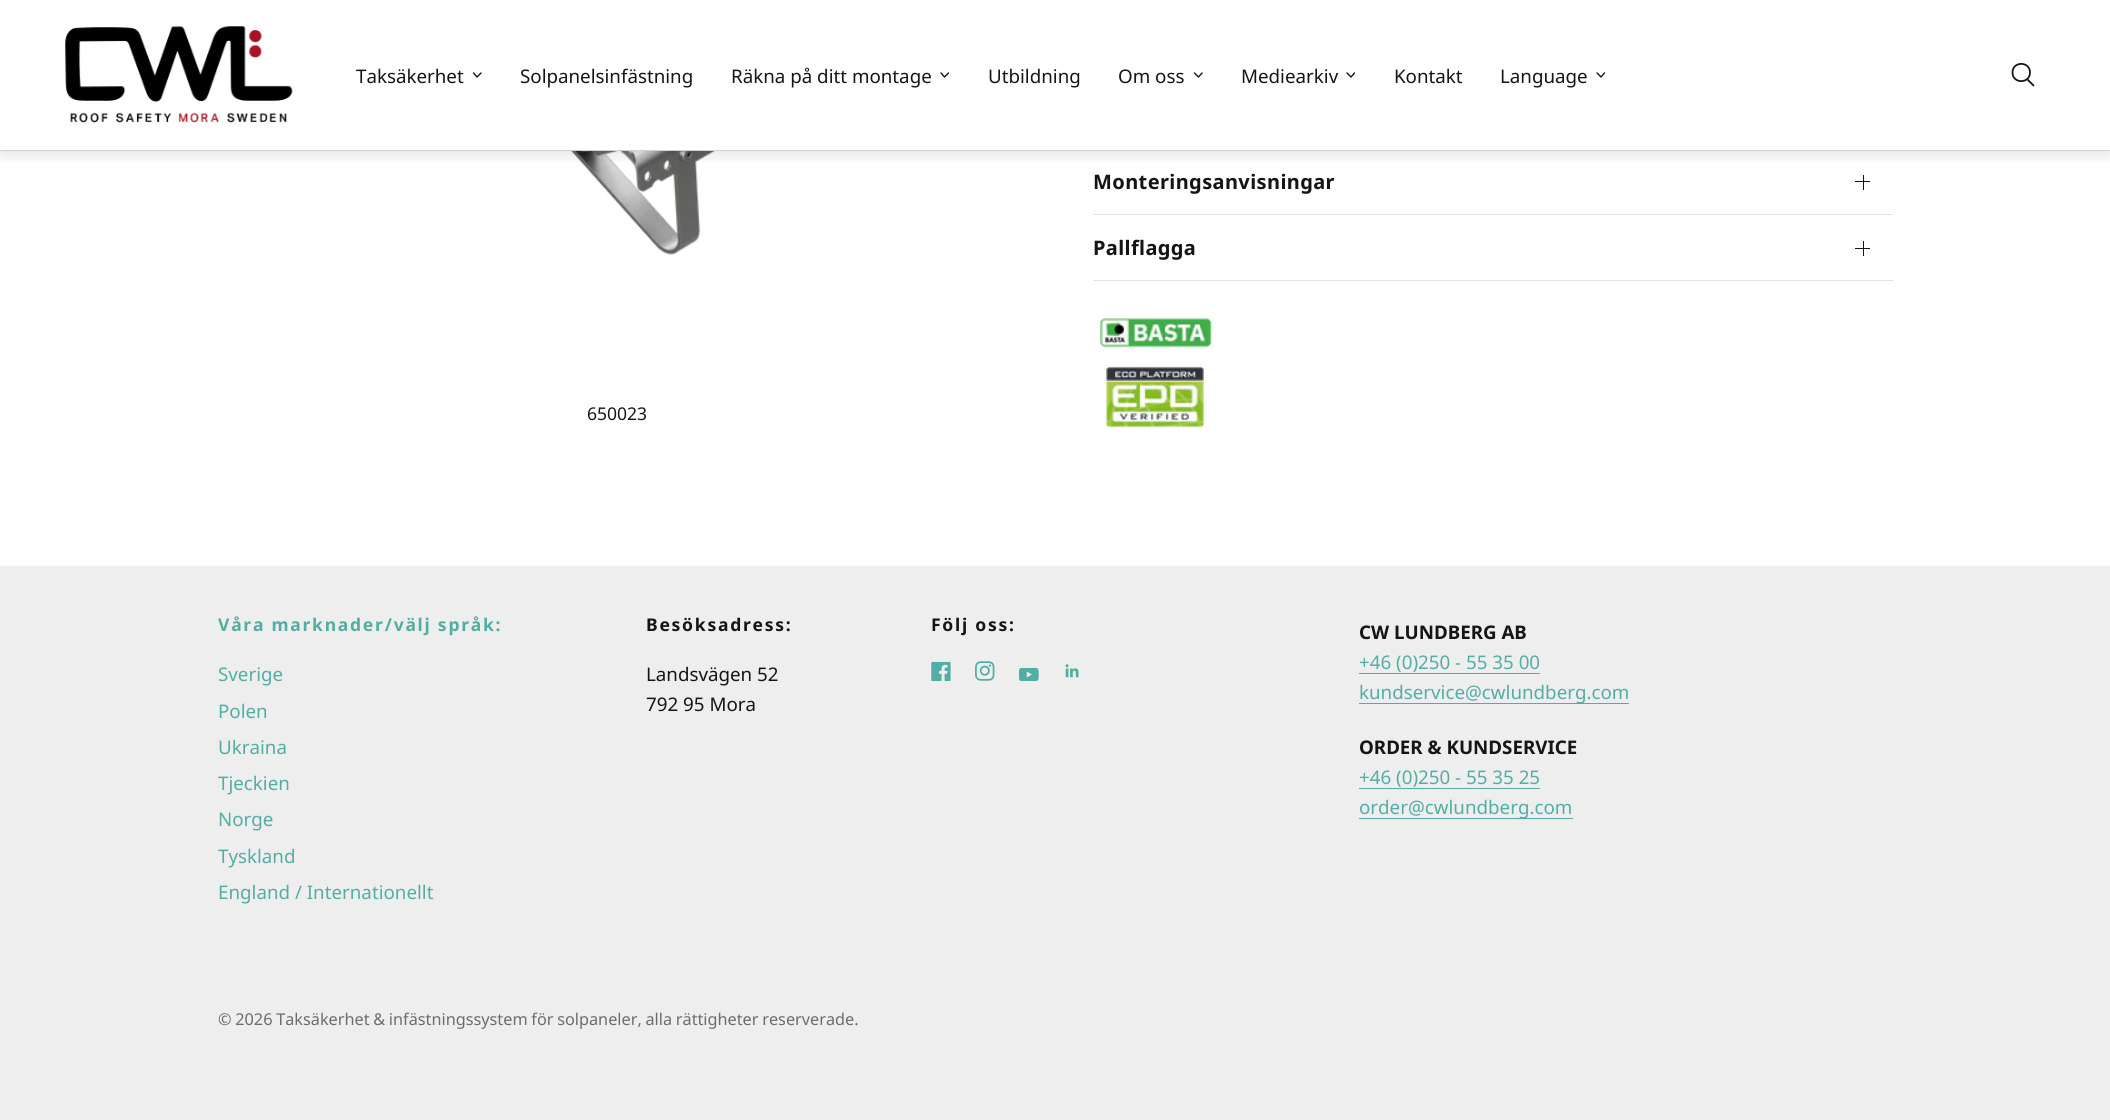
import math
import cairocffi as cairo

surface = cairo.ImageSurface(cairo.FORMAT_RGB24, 2110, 1120)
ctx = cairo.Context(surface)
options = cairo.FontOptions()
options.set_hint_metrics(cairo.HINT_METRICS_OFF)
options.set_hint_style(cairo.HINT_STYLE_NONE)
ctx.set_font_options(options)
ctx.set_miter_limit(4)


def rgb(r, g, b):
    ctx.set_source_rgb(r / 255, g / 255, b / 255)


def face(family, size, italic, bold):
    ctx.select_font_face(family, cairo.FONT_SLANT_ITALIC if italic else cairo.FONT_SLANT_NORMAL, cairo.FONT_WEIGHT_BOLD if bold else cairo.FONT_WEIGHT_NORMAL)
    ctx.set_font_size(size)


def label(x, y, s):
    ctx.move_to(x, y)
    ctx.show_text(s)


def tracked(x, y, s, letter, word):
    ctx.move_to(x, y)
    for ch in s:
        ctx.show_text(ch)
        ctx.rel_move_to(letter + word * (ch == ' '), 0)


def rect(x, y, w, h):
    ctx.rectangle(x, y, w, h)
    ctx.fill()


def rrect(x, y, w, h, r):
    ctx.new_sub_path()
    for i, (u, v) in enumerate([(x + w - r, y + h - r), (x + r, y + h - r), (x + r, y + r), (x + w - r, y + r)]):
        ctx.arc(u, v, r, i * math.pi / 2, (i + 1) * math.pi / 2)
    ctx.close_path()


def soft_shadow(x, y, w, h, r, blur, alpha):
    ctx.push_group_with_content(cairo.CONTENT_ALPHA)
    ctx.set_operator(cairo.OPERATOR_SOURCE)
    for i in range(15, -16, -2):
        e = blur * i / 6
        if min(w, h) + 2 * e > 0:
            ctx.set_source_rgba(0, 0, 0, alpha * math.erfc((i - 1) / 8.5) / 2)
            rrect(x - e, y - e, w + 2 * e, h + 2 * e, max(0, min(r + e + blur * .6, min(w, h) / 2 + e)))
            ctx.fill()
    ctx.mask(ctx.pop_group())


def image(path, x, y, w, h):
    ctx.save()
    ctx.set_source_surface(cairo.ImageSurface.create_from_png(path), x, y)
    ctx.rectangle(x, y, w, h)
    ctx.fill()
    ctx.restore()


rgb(255, 255, 255)
ctx.paint()
rgb(226, 226, 226)
rect(0, 150, 2110, 1)
rgb(21, 21, 21)
rect(1863, 175, 1, 15)
image('image3.png', 571, 151, 144, 104)
ctx.save()
ctx.rectangle(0, 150, 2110, 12)
ctx.clip()
rgb(0, 0, 0)
soft_shadow(0, 6, 2110, 150, 0, 7.5, 0.1)
ctx.restore()
image('image0.png', 65, 26, 228, 97)
face('Noto Sans', 18.75, 0, 0)
label(356, 83, 'Taksäkerhet')
ctx.new_path()
ctx.move_to(481, 73)
ctx.line_to(477, 77)
ctx.line_to(473.5, 73)
ctx.set_line_width(1.4)
ctx.set_line_cap(cairo.LINE_CAP_ROUND)
ctx.set_line_join(cairo.LINE_JOIN_ROUND)
ctx.stroke()
label(520, 83, 'Solpanelsinfästning')
label(731, 83, 'Räkna på ditt montage')
ctx.new_path()
ctx.move_to(948.5, 73)
ctx.line_to(944.5, 77)
ctx.line_to(941, 73)
ctx.stroke()
label(988, 83, 'Utbildning')
label(1118, 83, 'Om oss')
ctx.new_path()
ctx.move_to(1202, 73)
ctx.line_to(1198.5, 77)
ctx.line_to(1194.5, 73)
ctx.stroke()
label(1241, 83, 'Mediearkiv')
ctx.new_path()
ctx.move_to(1354.5, 73)
ctx.line_to(1351, 77)
ctx.line_to(1347, 73)
ctx.stroke()
label(1394, 83, 'Kontakt')
label(1500, 83, 'Language')
ctx.new_path()
ctx.move_to(1604.5, 73)
ctx.line_to(1601, 77)
ctx.line_to(1597, 73)
ctx.stroke()
ctx.new_path()
ctx.move_to(2027.5, 79.5)
ctx.line_to(2033.5, 85.5)
ctx.move_to(2030, 72.5)
ctx.curve_to(2030, 84, 2012.5, 84, 2012.5, 72.5)
ctx.curve_to(2012.5, 61, 2030, 61, 2030, 72.5)
ctx.close_path()
ctx.set_line_width(1.8)
ctx.stroke()
rgb(226, 226, 226)
rect(1093, 214, 800, 1)
face('Noto Sans', 20, 0, 1)
rgb(21, 21, 21)
tracked(1093, 189, 'Monteringsanvisningar', 0.4, 0)
rect(1855, 181, 15, 1)
rgb(226, 226, 226)
rect(1093, 280, 800, 1)
rgb(21, 21, 21)
tracked(1093, 255, 'Pallflagga', 0.4, 0)
rect(1863, 241, 1, 15)
rect(1855, 248, 15, 1)
image('image1.png', 1099, 318, 113, 30)
image('image2.png', 1106, 366, 98, 62)
face('Noto Sans', 17.5, 0, 0)
label(587, 420, '650023')
rgb(238, 238, 238)
rect(0, 566, 2110, 554)
face('Noto Sans', 17.5, 0, 1)
rgb(82, 174, 164)
tracked(218, 631, 'Våra marknader/välj språk:', 1.75, 0)
face('Noto Sans', 18.75, 0, 0)
label(218, 681, 'Sverige')
label(218, 718, 'Polen')
label(218, 754, 'Ukraina')
label(218, 790, 'Tjeckien')
label(218, 826, 'Norge')
label(218, 863, 'Tyskland')
label(218, 899, 'England / Internationellt')
face('Noto Sans', 17.5, 0, 1)
rgb(21, 21, 21)
tracked(646, 631, 'Besöksadress:', 1.75, 0)
face('Noto Sans', 18.75, 0, 0)
label(646, 681, 'Landsvägen 52')
label(646, 711, '792 95 Mora')
face('Noto Sans', 17.5, 0, 1)
tracked(931, 631, 'Följ oss:', 1.75, 0)
image('image4.png', 931, 661, 20, 20)
image('image5.png', 975, 661, 20, 20)
image('image6.png', 1019, 668, 20, 13)
image('image7.png', 1065, 664, 14, 14)
face('Noto Sans', 18.75, 0, 1)
label(1359, 639, 'CW LUNDBERG AB')
face('Noto Sans', 18.75, 0, 0)
rgb(82, 174, 164)
label(1359, 669, '+46 (0)250 - 55 35 00')
rect(1359, 673, 181, 1)
rect(1359, 703, 270, 1)
label(1359, 699, 'kundservice@cwlundberg.com')
face('Noto Sans', 18.75, 0, 1)
rgb(21, 21, 21)
label(1359, 754, 'ORDER & KUNDSERVICE')
face('Noto Sans', 18.75, 0, 0)
rgb(82, 174, 164)
label(1359, 784, '+46 (0)250 - 55 35 25')
rect(1359, 788, 181, 1)
rect(1359, 818, 214, 1)
label(1359, 814, 'order@cwlundberg.com')
face('Noto Sans', 16.25, 0, 0)
rgb(108, 108, 108)
tracked(218, 1025, '© 2026 Taksäkerhet & infästningssystem för solpaneler, alla rättigheter reserverade.', 0, -0.5)
surface.write_to_png('render.png')
